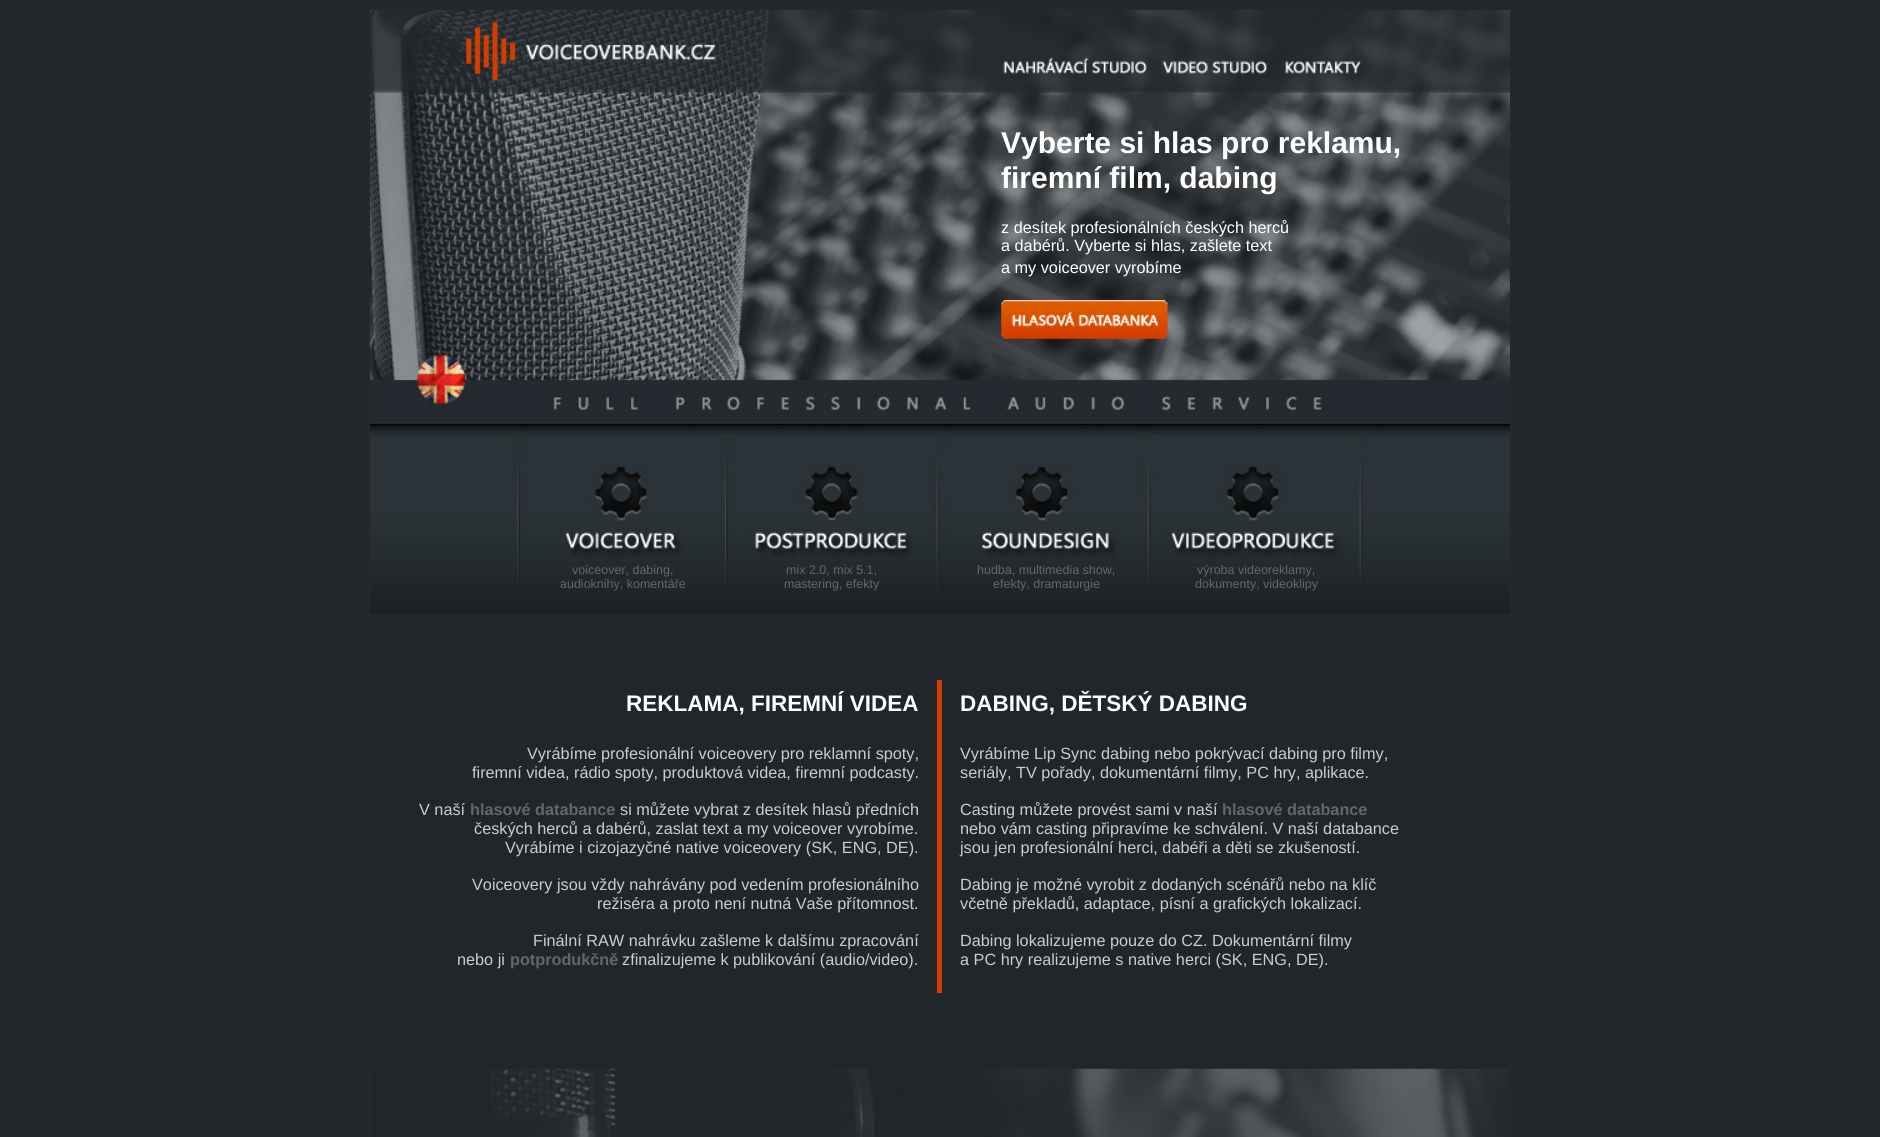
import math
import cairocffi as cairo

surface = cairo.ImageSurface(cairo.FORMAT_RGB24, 1880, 1137)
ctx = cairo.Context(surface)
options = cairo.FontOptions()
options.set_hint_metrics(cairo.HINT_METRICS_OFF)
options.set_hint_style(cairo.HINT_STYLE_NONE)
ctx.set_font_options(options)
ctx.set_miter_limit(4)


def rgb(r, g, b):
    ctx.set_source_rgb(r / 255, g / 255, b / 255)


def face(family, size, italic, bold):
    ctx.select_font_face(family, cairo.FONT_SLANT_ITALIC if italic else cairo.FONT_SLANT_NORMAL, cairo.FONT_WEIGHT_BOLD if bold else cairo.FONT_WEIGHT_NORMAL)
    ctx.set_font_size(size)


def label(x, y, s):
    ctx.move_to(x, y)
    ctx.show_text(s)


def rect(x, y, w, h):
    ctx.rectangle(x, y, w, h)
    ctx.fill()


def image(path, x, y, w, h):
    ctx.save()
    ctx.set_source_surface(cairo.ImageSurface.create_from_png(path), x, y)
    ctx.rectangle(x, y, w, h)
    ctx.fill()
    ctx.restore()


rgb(36, 40, 43)
ctx.paint()
rgb(42, 49, 55)
rect(370, 10, 1140, 604)
image('image0.png', 370, 10, 624, 82)
image('image1.png', 994, 10, 161, 81)
image('image2.png', 1155, 10, 120, 81)
image('image3.png', 1275, 10, 97, 81)
image('image4.png', 1371, 10, 139, 81)
image('image5.png', 370, 91, 1140, 331)
face('Liberation Sans', 30, 0, 1)
rgb(255, 255, 255)
label(1001, 153, 'Vyberte si hlas pro reklamu,')
label(1001, 188, 'firemní film, dabing')
face('Liberation Sans', 16.25, 0, 0)
label(1001, 233, 'z desítek profesionálních českých herců')
label(1001, 251, 'a dabérů. Vyberte si hlas, zašlete text')
label(1001, 273, 'a my voiceover vyrobíme')
image('image6.png', 1001, 300, 167, 39)
image('image13.png', 370, 562, 1140, 52)
image('image7.png', 370, 423, 149, 140)
image('image8.png', 518, 423, 209, 140)
image('image9.png', 726, 423, 212, 140)
image('image10.png', 937, 423, 218, 140)
image('image11.png', 1155, 423, 217, 139)
image('image12.png', 1371, 423, 139, 139)
face('Liberation Sans', 12.5, 0, 0)
rgb(102, 102, 102)
label(572, 574, 'voiceover, dabing,')
label(560, 588, 'audioknihy, komentáře')
label(786, 574, 'mix 2.0, mix 5.1,')
label(784, 588, 'mastering, efekty')
label(977, 574, 'hudba, multimedia show,')
label(993, 588, 'efekty, dramaturgie')
label(1197, 574, 'výroba videoreklamy,')
label(1195, 588, 'dokumenty, videoklipy')
rgb(33, 38, 43)
rect(370, 614, 1140, 455)
rgb(211, 60, 3)
rect(937, 680, 5, 313)
face('Liberation Sans', 22.5, 0, 1)
rgb(255, 255, 255)
label(626, 711, 'REKLAMA, FIREMNÍ VIDEA')
face('Liberation Sans', 16.25, 0, 0)
rgb(204, 204, 204)
label(527, 759, 'Vyrábíme profesionální voiceovery pro reklamní spoty,')
label(472, 778, 'firemní videa, rádio spoty, produktová videa, firemní podcasty.')
label(419, 815, 'V naší')
face('Liberation Sans', 16.25, 0, 1)
rgb(102, 102, 102)
label(470, 815, 'hlasové databance')
face('Liberation Sans', 16.25, 0, 0)
rgb(204, 204, 204)
label(620, 815, 'si můžete vybrat z desítek hlasů předních')
label(474, 834, 'českých herců a dabérů, zaslat text a my voiceover vyrobíme.')
label(505, 853, 'Vyrábíme i cizojazyčné native voiceovery (SK, ENG, DE).')
label(472, 890, 'Voiceovery jsou vždy nahrávány pod vedením profesionálního')
label(597, 909, 'režiséra a proto není nutná Vaše přítomnost.')
label(533, 946, 'Finální RAW nahrávku zašleme k dalšímu zpracování')
label(457, 965, 'nebo ji')
face('Liberation Sans', 16.25, 0, 1)
rgb(102, 102, 102)
label(510, 965, 'potprodukčně')
face('Liberation Sans', 16.25, 0, 0)
rgb(204, 204, 204)
label(622, 965, 'zfinalizujeme k publikování (audio/video).')
face('Liberation Sans', 22.5, 0, 1)
rgb(255, 255, 255)
label(960, 711, 'DABING, DĚTSKÝ DABING')
face('Liberation Sans', 16.25, 0, 0)
rgb(204, 204, 204)
label(960, 759, 'Vyrábíme Lip Sync dabing nebo pokrývací dabing pro filmy,')
label(960, 778, 'seriály, TV pořady, dokumentární filmy, PC hry, aplikace.')
label(960, 815, 'Casting můžete provést sami v naší')
face('Liberation Sans', 16.25, 0, 1)
rgb(102, 102, 102)
label(1222, 815, 'hlasové databance')
face('Liberation Sans', 16.25, 0, 0)
rgb(204, 204, 204)
label(960, 834, 'nebo vám casting připravíme ke schválení. V naší databance')
label(960, 853, 'jsou jen profesionální herci, dabéři a děti se zkušeností.')
label(960, 890, 'Dabing je možné vyrobit z dodaných scénářů nebo na klíč')
label(960, 909, 'včetně překladů, adaptace, písní a grafických lokalizací.')
label(960, 946, 'Dabing lokalizujeme pouze do CZ. Dokumentární filmy')
label(960, 965, 'a PC hry realizujeme s native herci (SK, ENG, DE).')
image('image14.png', 370, 1068, 1140, 69)
surface.write_to_png('render.png')
